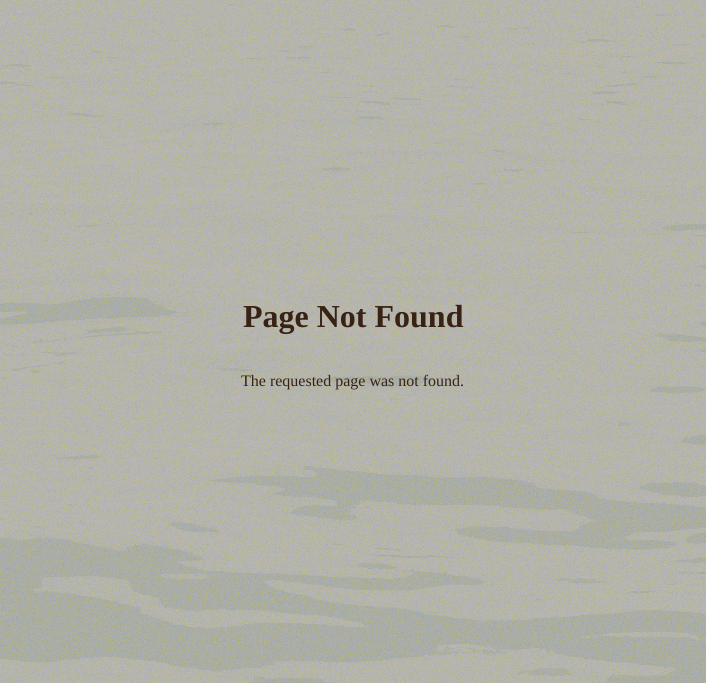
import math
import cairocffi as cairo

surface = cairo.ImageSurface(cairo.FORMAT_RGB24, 706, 683)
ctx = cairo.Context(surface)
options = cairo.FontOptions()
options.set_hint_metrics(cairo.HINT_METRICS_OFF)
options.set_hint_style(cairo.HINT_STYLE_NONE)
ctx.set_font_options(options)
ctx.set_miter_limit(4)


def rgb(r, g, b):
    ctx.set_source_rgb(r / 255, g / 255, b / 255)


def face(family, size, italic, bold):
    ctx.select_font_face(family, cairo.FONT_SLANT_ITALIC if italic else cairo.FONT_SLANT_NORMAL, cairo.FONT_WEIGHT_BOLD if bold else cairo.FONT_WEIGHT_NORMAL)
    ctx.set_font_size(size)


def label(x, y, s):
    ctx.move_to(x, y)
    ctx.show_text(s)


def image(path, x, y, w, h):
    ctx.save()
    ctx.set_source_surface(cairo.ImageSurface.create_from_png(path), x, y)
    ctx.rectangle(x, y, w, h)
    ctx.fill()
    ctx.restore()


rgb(187, 182, 173)
ctx.paint()
image('image0.png', 0, 0, 706, 683)
face('Liberation Serif', 32, 0, 1)
rgb(56, 34, 21)
label(243, 327, 'Page Not Found')
face('Liberation Serif', 16, 0, 0)
label(241, 386, 'The requested page was not found.')
surface.write_to_png('render.png')
